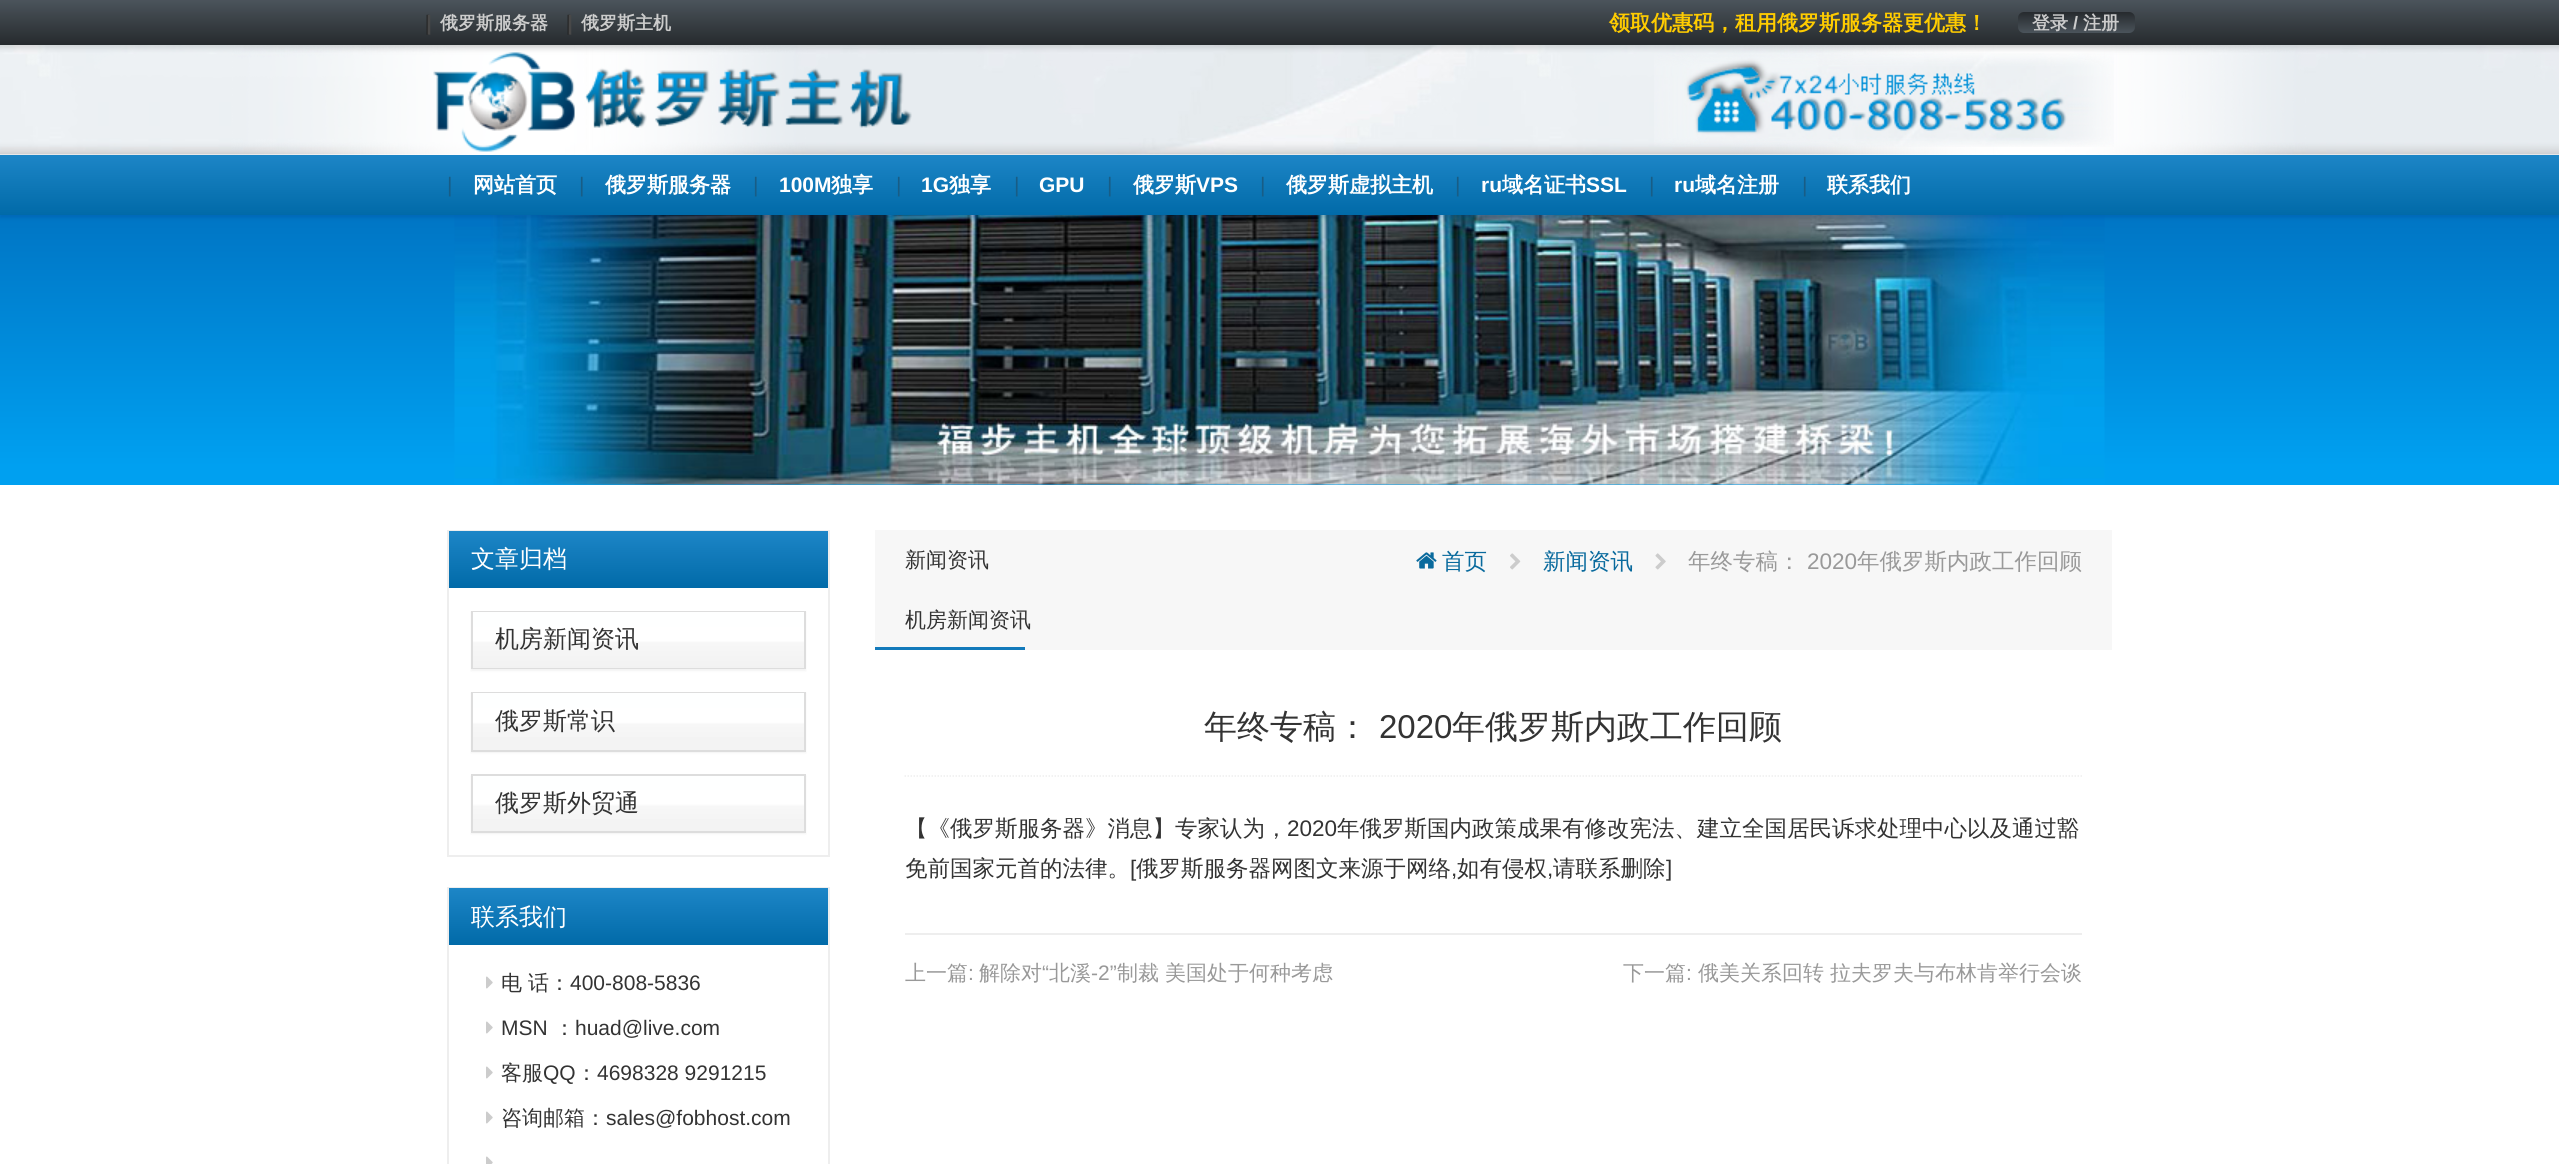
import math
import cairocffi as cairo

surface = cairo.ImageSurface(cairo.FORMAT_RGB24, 2559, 1164)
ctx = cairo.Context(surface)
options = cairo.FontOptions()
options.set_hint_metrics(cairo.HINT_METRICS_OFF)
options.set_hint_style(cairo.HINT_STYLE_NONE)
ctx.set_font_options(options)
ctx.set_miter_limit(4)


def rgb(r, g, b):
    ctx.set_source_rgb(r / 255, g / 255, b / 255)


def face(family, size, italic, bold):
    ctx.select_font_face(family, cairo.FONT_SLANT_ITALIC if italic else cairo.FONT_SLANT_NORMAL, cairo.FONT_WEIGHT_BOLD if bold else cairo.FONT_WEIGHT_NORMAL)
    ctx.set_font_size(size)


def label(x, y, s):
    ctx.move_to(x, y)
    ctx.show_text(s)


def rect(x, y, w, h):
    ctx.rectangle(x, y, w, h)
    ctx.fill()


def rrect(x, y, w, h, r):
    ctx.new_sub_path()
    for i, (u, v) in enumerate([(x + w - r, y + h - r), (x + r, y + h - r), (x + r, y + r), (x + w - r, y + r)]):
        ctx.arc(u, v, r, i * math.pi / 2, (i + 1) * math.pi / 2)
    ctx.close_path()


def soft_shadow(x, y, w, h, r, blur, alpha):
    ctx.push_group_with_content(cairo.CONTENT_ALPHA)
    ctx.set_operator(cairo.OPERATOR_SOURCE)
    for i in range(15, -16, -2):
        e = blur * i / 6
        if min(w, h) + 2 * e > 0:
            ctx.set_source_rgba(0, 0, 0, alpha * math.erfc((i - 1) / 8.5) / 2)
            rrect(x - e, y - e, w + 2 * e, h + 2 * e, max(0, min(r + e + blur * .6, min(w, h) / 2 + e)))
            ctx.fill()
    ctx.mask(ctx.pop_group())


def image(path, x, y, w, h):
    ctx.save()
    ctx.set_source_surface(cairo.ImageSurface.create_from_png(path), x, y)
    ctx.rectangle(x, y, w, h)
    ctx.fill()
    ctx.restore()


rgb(255, 255, 255)
ctx.paint()
rgb(0, 0, 0)
soft_shadow(0, 3, 2559, 45, 0, 3, 0.2)
gradient = cairo.LinearGradient(1280, 0, 1280, 45)
gradient.add_color_stop_rgba(0, 0.294, 0.329, 0.357, 1)
gradient.add_color_stop_rgba(1, 0.149, 0.165, 0.18, 1)
ctx.set_source(gradient)
rect(0, 0, 2559, 45)
face('Liberation Sans', 21, 0, 1)
rgb(31, 31, 31)
label(425, 30, '|')
rgb(72, 72, 72)
label(426, 30, '|')
face('WenQuanYi Zen Hei', 18, 0, 1)
rgb(204, 204, 204)
label(440, 29, '俄罗斯服务器')
face('Liberation Sans', 21, 0, 1)
rgb(31, 31, 31)
label(566, 30, '|')
face('WenQuanYi Zen Hei', 18, 0, 1)
rgb(204, 204, 204)
label(581, 29, '俄罗斯主机')
face('Liberation Sans', 21, 0, 1)
rgb(72, 72, 72)
label(567, 30, '|')
face('WenQuanYi Zen Hei', 21, 0, 1)
rgb(255, 204, 0)
label(1609, 30, '领取优惠码，租用俄罗斯服务器更优惠！')
gradient = cairo.LinearGradient(2076, 12, 2076, 33)
gradient.add_color_stop_rgba(0, 0.149, 0.165, 0.18, 1)
gradient.add_color_stop_rgba(1, 0.294, 0.329, 0.357, 1)
ctx.set_source(gradient)
rrect(2018, 12, 117, 21, 6)
ctx.fill()
face('WenQuanYi Zen Hei', 18, 0, 1)
rgb(204, 204, 204)
label(2032, 29, '登录')
face('Liberation Sans', 18, 0, 1)
label(2073, 29, '/')
face('WenQuanYi Zen Hei', 18, 0, 1)
label(2083, 29, '注册')
image('image0.png', 0, 45, 2559, 110)
image('image1.png', 433, 52, 479, 100)
image('image2.png', 1654, 53, 460, 94)
gradient = cairo.LinearGradient(1280, 214, 1280, 485)
gradient.add_color_stop_rgba(0, 0, 0.459, 0.769, 1)
gradient.add_color_stop_rgba(0.93, 0, 0.627, 0.941, 1)
ctx.set_source(gradient)
rect(0, 215, 2559, 270)
image('image3.png', 454, 215, 1651, 270)
rgb(2, 43, 119)
soft_shadow(0, 158, 2559, 60, 0, 1.5, 0.16)
gradient = cairo.LinearGradient(1280, 154, 1280, 215)
gradient.add_color_stop_rgba(0, 0.114, 0.525, 0.78, 1)
gradient.add_color_stop_rgba(1, 0.004, 0.416, 0.659, 1)
ctx.set_source(gradient)
rect(0, 155, 2559, 60)
face('Liberation Sans', 21, 0, 0)
rgb(24, 93, 134)
label(447, 192, '|')
face('WenQuanYi Zen Hei', 21, 0, 1)
rgb(255, 255, 255)
label(473, 192, '网站首页')
face('Liberation Sans', 21, 0, 0)
rgb(24, 93, 134)
label(579, 192, '|')
face('WenQuanYi Zen Hei', 21, 0, 1)
rgb(255, 255, 255)
label(605, 192, '俄罗斯服务器')
face('Liberation Sans', 21, 0, 0)
rgb(24, 93, 134)
label(753, 192, '|')
face('Liberation Sans', 21, 0, 1)
rgb(255, 255, 255)
label(779, 192, '100M')
face('WenQuanYi Zen Hei', 21, 0, 1)
label(831, 192, '独享')
face('Liberation Sans', 21, 0, 0)
rgb(24, 93, 134)
label(896, 192, '|')
face('Liberation Sans', 21, 0, 1)
rgb(255, 255, 255)
label(921, 192, '1G')
face('WenQuanYi Zen Hei', 21, 0, 1)
label(949, 192, '独享')
face('Liberation Sans', 21, 0, 0)
rgb(24, 93, 134)
label(1014, 192, '|')
face('Liberation Sans', 21, 0, 1)
rgb(255, 255, 255)
label(1039, 192, 'GPU')
face('Liberation Sans', 21, 0, 0)
rgb(24, 93, 134)
label(1107, 192, '|')
face('WenQuanYi Zen Hei', 21, 0, 1)
rgb(255, 255, 255)
label(1133, 192, '俄罗斯')
face('Liberation Sans', 21, 0, 1)
label(1196, 192, 'VPS')
face('Liberation Sans', 21, 0, 0)
rgb(24, 93, 134)
label(1260, 192, '|')
face('WenQuanYi Zen Hei', 21, 0, 1)
rgb(255, 255, 255)
label(1286, 192, '俄罗斯虚拟主机')
face('Liberation Sans', 21, 0, 0)
rgb(24, 93, 134)
label(1455, 192, '|')
face('Liberation Sans', 21, 0, 1)
rgb(255, 255, 255)
label(1481, 192, 'ru')
face('WenQuanYi Zen Hei', 21, 0, 1)
label(1502, 192, '域名证书')
face('Liberation Sans', 21, 0, 1)
label(1586, 192, 'SSL')
face('Liberation Sans', 21, 0, 0)
rgb(24, 93, 134)
label(1649, 192, '|')
face('Liberation Sans', 21, 0, 1)
rgb(255, 255, 255)
label(1674, 192, 'ru')
face('WenQuanYi Zen Hei', 21, 0, 1)
label(1695, 192, '域名注册')
face('Liberation Sans', 21, 0, 0)
rgb(24, 93, 134)
label(1802, 192, '|')
face('WenQuanYi Zen Hei', 21, 0, 1)
rgb(255, 255, 255)
label(1827, 192, '联系我们')
ctx.rectangle(448, 531, 381, 325)
rgb(238, 238, 238)
ctx.stroke()
gradient = cairo.LinearGradient(638, 531, 638, 588)
gradient.add_color_stop_rgba(0, 0.114, 0.525, 0.78, 1)
gradient.add_color_stop_rgba(1, 0.004, 0.416, 0.659, 1)
ctx.set_source(gradient)
rect(449, 531, 379, 57)
face('WenQuanYi Zen Hei Medium', 24, 0, 0)
rgb(255, 255, 255)
label(471, 567, '文章归档')
rgb(0, 0, 0)
soft_shadow(471, 612, 335, 59, 0, 1, 0.05)
ctx.rectangle(472, 612, 333, 56)
rgb(221, 221, 221)
ctx.stroke()
gradient = cairo.LinearGradient(638, 612, 638, 668)
gradient.add_color_stop_rgba(0, 0.996, 1, 1, 1)
gradient.add_color_stop_rgba(0.51, 1, 1, 1, 1)
gradient.add_color_stop_rgba(0.55, 0.969, 0.969, 0.969, 1)
gradient.add_color_stop_rgba(1, 0.949, 0.949, 0.949, 1)
ctx.set_source(gradient)
rect(473, 612, 331, 56)
rgb(51, 51, 51)
label(495, 647, '机房新闻资讯')
rgb(0, 0, 0)
soft_shadow(471, 693, 335, 60, 0, 1, 0.05)
ctx.rectangle(472, 693, 333, 58)
rgb(221, 221, 221)
ctx.stroke()
gradient = cairo.LinearGradient(638, 693, 638, 750)
gradient.add_color_stop_rgba(0, 0.996, 1, 1, 1)
gradient.add_color_stop_rgba(0.51, 1, 1, 1, 1)
gradient.add_color_stop_rgba(0.55, 0.969, 0.969, 0.969, 1)
gradient.add_color_stop_rgba(1, 0.949, 0.949, 0.949, 1)
ctx.set_source(gradient)
rect(473, 693, 331, 44)
rgb(51, 51, 51)
label(495, 729, '俄罗斯常识')
rgb(0, 0, 0)
soft_shadow(471, 776, 335, 58, 0, 1, 0.05)
ctx.rectangle(472, 775, 333, 57)
rgb(221, 221, 221)
ctx.stroke()
gradient = cairo.LinearGradient(638, 776, 638, 831)
gradient.add_color_stop_rgba(0, 0.996, 1, 1, 1)
gradient.add_color_stop_rgba(0.51, 1, 1, 1, 1)
gradient.add_color_stop_rgba(0.55, 0.969, 0.969, 0.969, 1)
gradient.add_color_stop_rgba(1, 0.949, 0.949, 0.949, 1)
ctx.set_source(gradient)
rect(473, 776, 331, 43)
rgb(51, 51, 51)
label(495, 811, '俄罗斯外贸通')
ctx.rectangle(448, 888, 381, 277)
rgb(238, 238, 238)
ctx.stroke()
gradient = cairo.LinearGradient(638, 888, 638, 945)
gradient.add_color_stop_rgba(0, 0.114, 0.525, 0.78, 1)
gradient.add_color_stop_rgba(1, 0.004, 0.416, 0.659, 1)
ctx.set_source(gradient)
rect(449, 888, 379, 57)
rgb(255, 255, 255)
label(471, 925, '联系我们')
image('image4.png', 486, 976, 7, 13)
face('WenQuanYi Zen Hei Medium', 21, 0, 0)
rgb(51, 51, 51)
label(501, 990, '电')
label(528, 990, '话：')
face('Liberation Sans', 21, 0, 0)
label(570, 990, '400-808-5836')
image('image4.png', 486, 1021, 7, 13)
label(501, 1035, 'MSN')
face('WenQuanYi Zen Hei Medium', 21, 0, 0)
label(554, 1035, '：')
face('Liberation Sans', 21, 0, 0)
label(575, 1035, 'huad@live.com')
image('image4.png', 486, 1066, 7, 13)
face('WenQuanYi Zen Hei Medium', 21, 0, 0)
label(501, 1080, '客服')
face('Liberation Sans', 21, 0, 0)
label(543, 1080, 'QQ')
face('WenQuanYi Zen Hei Medium', 21, 0, 0)
label(576, 1080, '：')
face('Liberation Sans', 21, 0, 0)
label(597, 1080, '4698328 9291215')
image('image4.png', 486, 1111, 7, 13)
face('WenQuanYi Zen Hei Medium', 21, 0, 0)
label(501, 1125, '咨询邮箱：')
face('Liberation Sans', 21, 0, 0)
label(606, 1125, 'sales@fobhost.com')
image('image5.png', 486, 1156, 7, 8)
rgb(247, 247, 247)
rect(875, 530, 1237, 120)
face('WenQuanYi Zen Hei Medium', 21, 0, 0)
rgb(51, 51, 51)
label(905, 567, '新闻资讯')
label(905, 627, '机房新闻资讯')
rgb(19, 122, 187)
rect(875, 647, 150, 3)
image('image6.png', 1416, 552, 21, 17)
face('WenQuanYi Zen Hei Medium', 22.5, 0, 0)
rgb(9, 106, 157)
label(1442, 569, '首页')
image('image7.png', 1510, 553, 11, 17)
label(1543, 569, '新闻资讯')
image('image8.png', 1655, 553, 11, 17)
rgb(153, 153, 153)
label(1688, 569, '年终专稿：')
face('Liberation Sans', 22.5, 0, 0)
label(1807, 569, '2020')
face('WenQuanYi Zen Hei Medium', 22.5, 0, 0)
label(1857, 569, '年俄罗斯内政工作回顾')
ctx.new_path()
ctx.move_to(904.5, 776)
ctx.line_to(2082, 776)
rgb(238, 238, 238)
ctx.set_line_width(1.5)
ctx.set_dash([1.5, 1.5])
ctx.stroke()
face('WenQuanYi Zen Hei Medium', 33, 0, 0)
rgb(51, 51, 51)
label(1204, 738, '年终专稿：')
face('Liberation Sans', 33, 0, 0)
label(1379, 738, '2020')
face('WenQuanYi Zen Hei Medium', 33, 0, 0)
label(1452, 738, '年俄罗斯内政工作回顾')
face('WenQuanYi Zen Hei Medium', 22.5, 0, 0)
label(905, 836, '【《俄罗斯服务器》消息】专家认为，')
face('Liberation Sans', 22.5, 0, 0)
label(1287, 836, '2020')
face('WenQuanYi Zen Hei Medium', 22.5, 0, 0)
label(1337, 836, '年俄罗斯国内政策成果有修改宪法、建立全国居民诉求处理中心以及通过豁')
label(905, 876, '免前国家元首的法律。')
face('Liberation Sans', 22.5, 0, 0)
label(1130, 876, '[')
face('WenQuanYi Zen Hei Medium', 22.5, 0, 0)
label(1136, 876, '俄罗斯服务器网图文来源于网络')
face('Liberation Sans', 22.5, 0, 0)
label(1451, 876, ',')
face('WenQuanYi Zen Hei Medium', 22.5, 0, 0)
label(1457, 876, '如有侵权')
face('Liberation Sans', 22.5, 0, 0)
label(1547, 876, ',')
face('WenQuanYi Zen Hei Medium', 22.5, 0, 0)
label(1553, 876, '请联系删除')
face('Liberation Sans', 22.5, 0, 0)
label(1666, 876, ']')
rgb(238, 238, 238)
rect(905, 933, 1177, 2)
face('WenQuanYi Zen Hei Medium', 21, 0, 0)
rgb(153, 153, 153)
label(905, 980, '上一篇')
face('Liberation Sans', 21, 0, 0)
label(968, 980, ':')
face('WenQuanYi Zen Hei Medium', 21, 0, 0)
label(979, 980, '解除对')
face('Liberation Sans', 21, 0, 0)
label(1042, 980, '“')
face('WenQuanYi Zen Hei Medium', 21, 0, 0)
label(1049, 980, '北溪')
face('Liberation Sans', 21, 0, 0)
label(1091, 980, '-2”')
face('WenQuanYi Zen Hei Medium', 21, 0, 0)
label(1117, 980, '制裁')
label(1165, 980, '美国处于何种考虑')
label(1623, 980, '下一篇')
face('Liberation Sans', 21, 0, 0)
label(1686, 980, ':')
face('WenQuanYi Zen Hei Medium', 21, 0, 0)
label(1698, 980, '俄美关系回转')
label(1830, 980, '拉夫罗夫与布林肯举行会谈')
surface.write_to_png('render.png')
